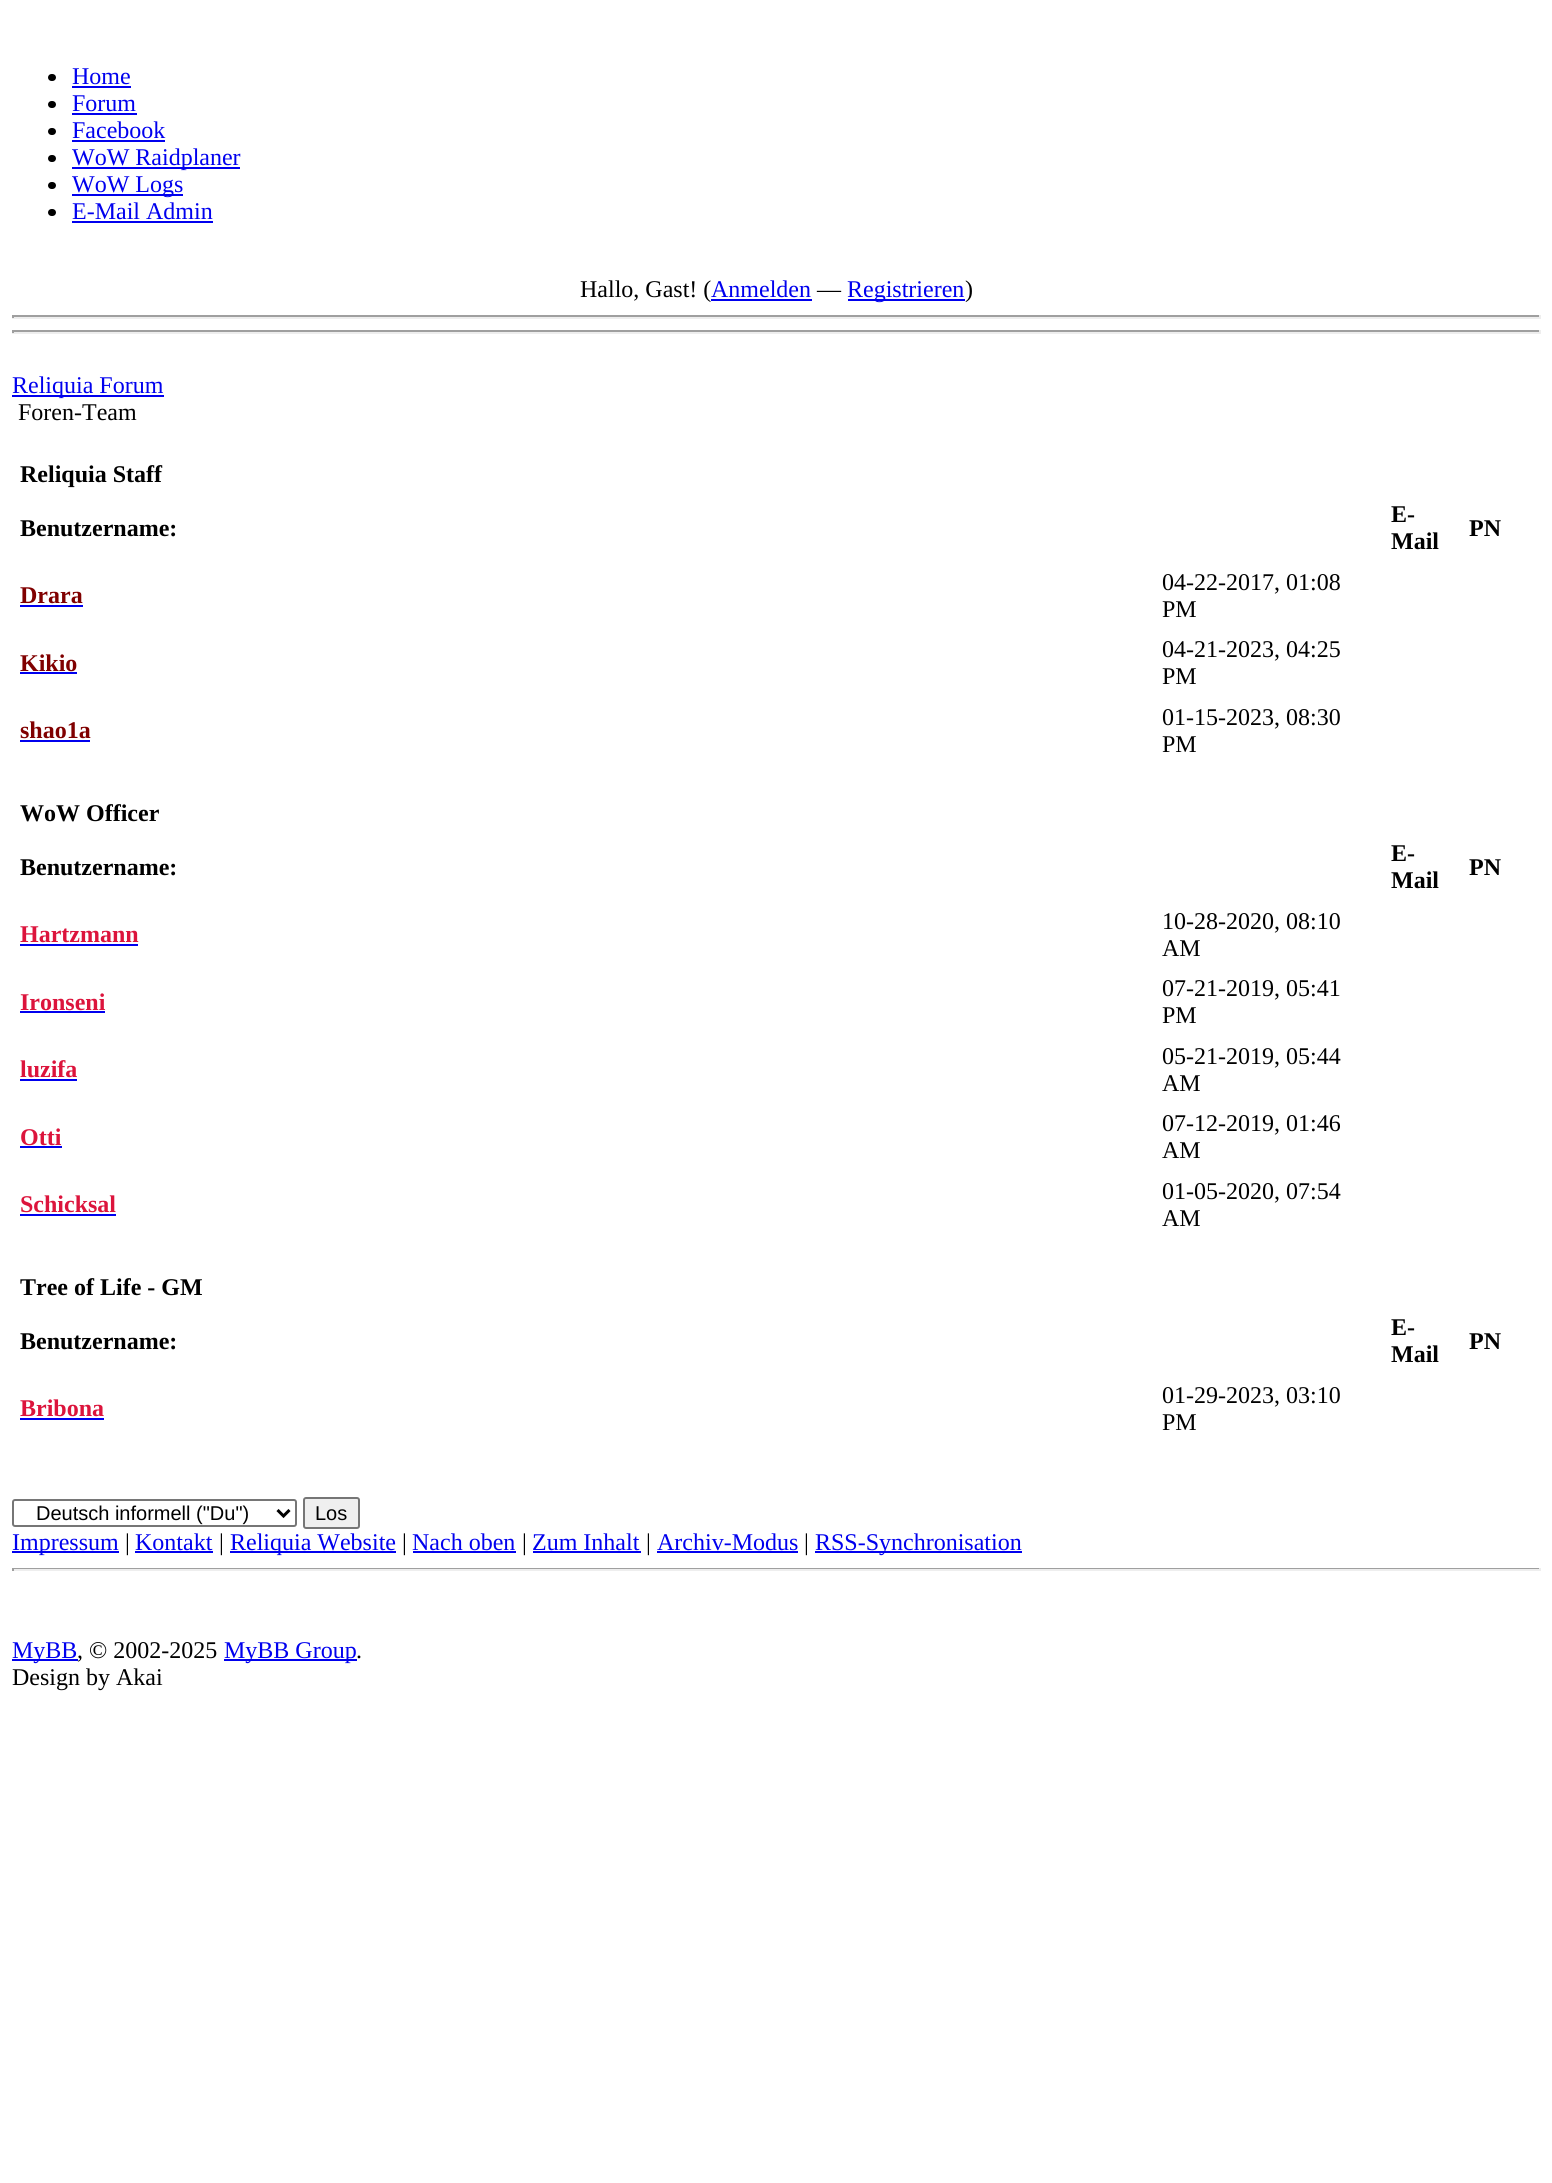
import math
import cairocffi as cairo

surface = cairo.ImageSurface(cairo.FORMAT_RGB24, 1552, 2183)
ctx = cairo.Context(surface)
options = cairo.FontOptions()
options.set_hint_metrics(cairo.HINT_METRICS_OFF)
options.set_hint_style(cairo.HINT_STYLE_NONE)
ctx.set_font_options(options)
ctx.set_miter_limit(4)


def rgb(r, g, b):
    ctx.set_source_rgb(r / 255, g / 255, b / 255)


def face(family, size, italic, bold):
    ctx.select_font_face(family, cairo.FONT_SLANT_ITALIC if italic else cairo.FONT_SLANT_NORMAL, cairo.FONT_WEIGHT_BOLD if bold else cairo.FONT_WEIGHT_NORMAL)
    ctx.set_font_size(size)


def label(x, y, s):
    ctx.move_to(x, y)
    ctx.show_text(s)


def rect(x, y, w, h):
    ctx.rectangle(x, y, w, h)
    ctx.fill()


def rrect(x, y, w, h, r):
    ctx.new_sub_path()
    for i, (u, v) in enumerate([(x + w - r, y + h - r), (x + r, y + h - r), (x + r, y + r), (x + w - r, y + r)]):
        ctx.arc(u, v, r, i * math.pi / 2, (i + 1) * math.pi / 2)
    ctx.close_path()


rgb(255, 255, 255)
ctx.paint()
rgb(0, 0, 0)
rrect(48, 74, 8, 7, 3.5)
ctx.fill()
face('Liberation Serif', 24, 0, 0)
rgb(0, 0, 238)
label(72, 84, 'Home')
rect(72, 86, 59, 2)
rgb(0, 0, 0)
rrect(48, 101, 8, 7, 3.5)
ctx.fill()
rgb(0, 0, 238)
label(72, 111, 'Forum')
rect(72, 113, 65, 2)
rgb(0, 0, 0)
rrect(48, 128, 8, 7, 3.5)
ctx.fill()
rgb(0, 0, 238)
label(72, 138, 'Facebook')
rect(72, 140, 93, 2)
rgb(0, 0, 0)
rrect(48, 155, 8, 7, 3.5)
ctx.fill()
rgb(0, 0, 238)
rect(72, 167, 168, 2)
label(72, 165, 'WoW Raidplaner')
rgb(0, 0, 0)
rrect(48, 182, 8, 7, 3.5)
ctx.fill()
rgb(0, 0, 238)
rect(72, 194, 111, 2)
label(72, 192, 'WoW Logs')
rgb(0, 0, 0)
rrect(48, 209, 8, 7, 3.5)
ctx.fill()
rgb(0, 0, 238)
label(72, 219, 'E-Mail Admin')
rect(72, 221, 141, 2)
rgb(0, 0, 0)
label(580, 297, 'Hallo, Gast! (')
rgb(0, 0, 238)
rect(711, 299, 101, 2)
label(711, 297, 'Anmelden')
rgb(0, 0, 0)
label(817, 297, '—')
rgb(0, 0, 238)
rect(848, 299, 117, 2)
label(847, 297, 'Registrieren')
rgb(0, 0, 0)
label(965, 297, ')')
rgb(159, 159, 159)
rect(12, 315, 1529, 2)
rgb(238, 238, 238)
rect(1539, 315, 2, 3)
rect(12, 317, 1529, 2)
rgb(159, 159, 159)
rect(12, 315, 2, 3)
rect(12, 330, 1529, 2)
rgb(238, 238, 238)
rect(1539, 330, 2, 3)
rect(12, 332, 1529, 2)
rgb(159, 159, 159)
rect(12, 330, 2, 3)
rgb(0, 0, 238)
rect(12, 395, 152, 2)
label(12, 393, 'Reliquia Forum')
rgb(0, 0, 0)
label(18, 420, 'Foren-Team')
face('Liberation Serif', 24, 0, 1)
label(20, 482, 'Reliquia Staff')
label(20, 536, 'Benutzername:')
label(1391, 522, 'E-')
label(1391, 549, 'Mail')
label(1469, 536, 'PN')
rgb(128, 0, 0)
label(20, 603, 'Drara')
rgb(0, 0, 238)
rect(20, 605, 63, 2)
face('Liberation Serif', 24, 0, 0)
rgb(0, 0, 0)
label(1162, 590, '04-22-2017, 01:08')
label(1162, 617, 'PM')
face('Liberation Serif', 24, 0, 1)
rgb(128, 0, 0)
label(20, 671, 'Kikio')
rgb(0, 0, 238)
rect(20, 672, 57, 2)
face('Liberation Serif', 24, 0, 0)
rgb(0, 0, 0)
label(1162, 657, '04-21-2023, 04:25')
label(1162, 684, 'PM')
face('Liberation Serif', 24, 0, 1)
rgb(128, 0, 0)
label(20, 738, 'shao1a')
rgb(0, 0, 238)
rect(20, 740, 70, 2)
face('Liberation Serif', 24, 0, 0)
rgb(0, 0, 0)
label(1162, 725, '01-15-2023, 08:30')
label(1162, 752, 'PM')
face('Liberation Serif', 24, 0, 1)
label(20, 821, 'WoW Officer')
label(20, 875, 'Benutzername:')
label(1391, 861, 'E-')
label(1391, 888, 'Mail')
label(1469, 875, 'PN')
rgb(220, 20, 60)
label(20, 942, 'Hartzmann')
rgb(0, 0, 238)
rect(20, 944, 118, 2)
face('Liberation Serif', 24, 0, 0)
rgb(0, 0, 0)
label(1162, 929, '10-28-2020, 08:10')
label(1162, 956, 'AM')
face('Liberation Serif', 24, 0, 1)
rgb(220, 20, 60)
label(20, 1010, 'Ironseni')
rgb(0, 0, 238)
rect(20, 1011, 85, 2)
face('Liberation Serif', 24, 0, 0)
rgb(0, 0, 0)
label(1162, 996, '07-21-2019, 05:41')
label(1162, 1023, 'PM')
face('Liberation Serif', 24, 0, 1)
rgb(220, 20, 60)
label(20, 1077, 'luzifa')
rgb(0, 0, 238)
rect(20, 1079, 57, 2)
face('Liberation Serif', 24, 0, 0)
rgb(0, 0, 0)
label(1162, 1064, '05-21-2019, 05:44')
label(1162, 1091, 'AM')
face('Liberation Serif', 24, 0, 1)
rgb(220, 20, 60)
label(20, 1145, 'Otti')
rgb(0, 0, 238)
rect(20, 1146, 42, 2)
face('Liberation Serif', 24, 0, 0)
rgb(0, 0, 0)
label(1162, 1131, '07-12-2019, 01:46')
label(1162, 1158, 'AM')
face('Liberation Serif', 24, 0, 1)
rgb(220, 20, 60)
label(20, 1212, 'Schicksal')
rgb(0, 0, 238)
rect(20, 1214, 96, 2)
face('Liberation Serif', 24, 0, 0)
rgb(0, 0, 0)
label(1162, 1199, '01-05-2020, 07:54')
label(1162, 1226, 'AM')
face('Liberation Serif', 24, 0, 1)
label(20, 1295, 'Tree of Life - GM')
label(20, 1349, 'Benutzername:')
label(1391, 1335, 'E-')
label(1391, 1362, 'Mail')
label(1469, 1349, 'PN')
rgb(220, 20, 60)
label(20, 1416, 'Bribona')
rgb(0, 0, 238)
rect(20, 1418, 84, 2)
face('Liberation Serif', 24, 0, 0)
rgb(0, 0, 0)
label(1162, 1403, '01-29-2023, 03:10')
label(1162, 1430, 'PM')
rrect(13, 1500, 283, 26, 2)
rgb(118, 118, 118)
ctx.stroke()
ctx.new_path()
ctx.move_to(277.5, 1510)
ctx.line_to(283.5, 1516)
ctx.line_to(289.5, 1510)
rgb(0, 0, 0)
ctx.set_line_width(3)
ctx.stroke()
face('Liberation Sans', 20, 0, 0)
label(36, 1520, 'Deutsch informell ("Du")')
rgb(239, 239, 239)
rrect(304, 1498, 55, 30, 2)
ctx.fill_preserve()
rgb(118, 118, 118)
ctx.set_line_width(2)
ctx.stroke()
rgb(0, 0, 0)
label(315, 1520, 'Los')
rgb(0, 0, 238)
rect(12, 1551, 107, 2)
face('Liberation Serif', 24, 0, 0)
label(12, 1550, 'Impressum')
rgb(0, 0, 0)
label(125, 1550, '|')
rgb(0, 0, 238)
label(135, 1550, 'Kontakt')
rect(135, 1551, 78, 2)
rgb(0, 0, 0)
label(219, 1550, '|')
rgb(0, 0, 238)
rect(230, 1551, 166, 2)
label(230, 1550, 'Reliquia Website')
rgb(0, 0, 0)
label(402, 1550, '|')
rgb(0, 0, 238)
label(412, 1550, 'Nach oben')
rect(413, 1551, 103, 2)
rgb(0, 0, 0)
label(522, 1550, '|')
rgb(0, 0, 238)
label(532, 1550, 'Zum Inhalt')
rect(533, 1551, 108, 2)
rgb(0, 0, 0)
label(646, 1550, '|')
rgb(0, 0, 238)
label(657, 1550, 'Archiv-Modus')
rect(657, 1551, 141, 2)
rgb(0, 0, 0)
label(804, 1550, '|')
rgb(0, 0, 238)
rect(815, 1551, 207, 2)
label(815, 1550, 'RSS-Synchronisation')
rgb(159, 159, 159)
rect(12, 1568, 1529, 1)
rgb(238, 238, 238)
rect(1539, 1568, 2, 3)
rect(12, 1569, 1529, 2)
rgb(159, 159, 159)
rect(12, 1568, 2, 3)
rgb(0, 0, 238)
rect(12, 1659, 66, 2)
label(12, 1658, 'MyBB')
rgb(0, 0, 0)
label(77, 1658, ', © 2002-2025')
rgb(0, 0, 238)
rect(224, 1659, 133, 2)
label(224, 1658, 'MyBB Group')
rgb(0, 0, 0)
label(356, 1658, '.')
label(12, 1685, 'Design by Akai')
surface.write_to_png('render.png')
